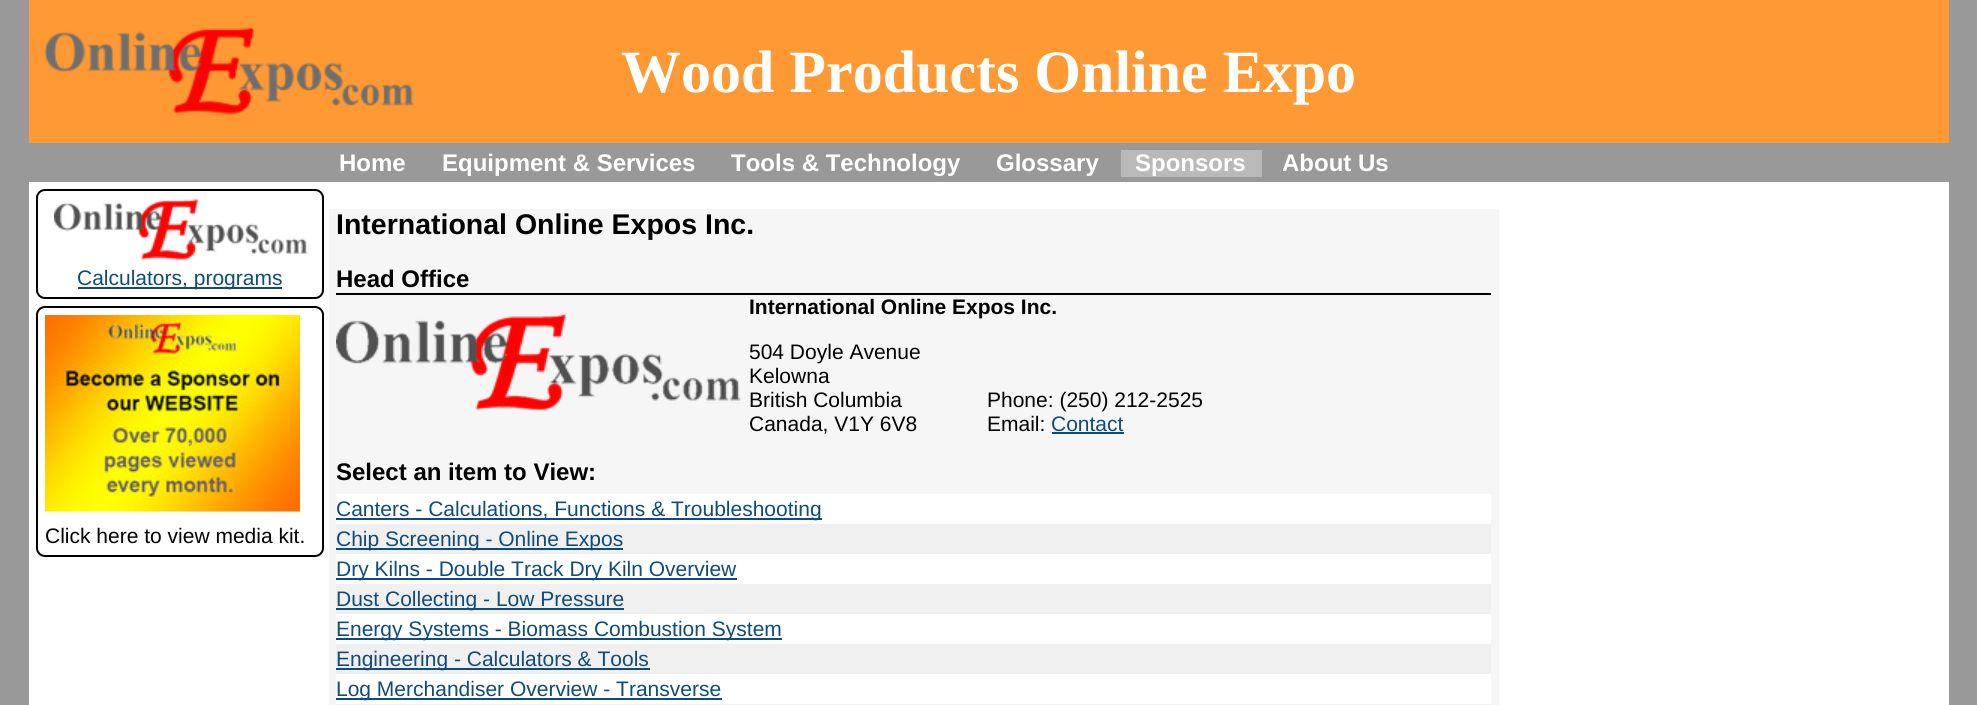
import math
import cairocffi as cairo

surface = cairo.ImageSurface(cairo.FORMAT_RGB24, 1977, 705)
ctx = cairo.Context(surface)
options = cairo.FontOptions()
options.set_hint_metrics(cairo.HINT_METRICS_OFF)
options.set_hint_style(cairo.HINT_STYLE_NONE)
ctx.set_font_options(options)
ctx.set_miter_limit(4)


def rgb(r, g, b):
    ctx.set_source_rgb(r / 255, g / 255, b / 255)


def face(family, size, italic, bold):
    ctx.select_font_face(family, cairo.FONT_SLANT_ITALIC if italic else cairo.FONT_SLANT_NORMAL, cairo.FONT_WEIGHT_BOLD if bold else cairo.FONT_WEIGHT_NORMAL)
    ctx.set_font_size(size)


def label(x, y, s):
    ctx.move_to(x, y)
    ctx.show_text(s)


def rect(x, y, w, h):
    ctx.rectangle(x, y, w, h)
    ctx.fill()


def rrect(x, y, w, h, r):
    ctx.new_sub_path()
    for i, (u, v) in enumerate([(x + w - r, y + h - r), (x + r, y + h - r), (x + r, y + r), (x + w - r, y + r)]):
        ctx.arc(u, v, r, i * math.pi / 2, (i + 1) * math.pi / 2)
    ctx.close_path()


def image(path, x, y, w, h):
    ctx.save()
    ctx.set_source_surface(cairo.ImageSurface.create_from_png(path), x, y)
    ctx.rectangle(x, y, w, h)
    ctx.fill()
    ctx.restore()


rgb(153, 153, 153)
ctx.paint()
rgb(255, 255, 255)
rect(29, 182, 1920, 523)
rgb(255, 153, 51)
rect(29, 0, 1920, 143)
image('image0.png', 44, 27, 370, 88)
face('Liberation Serif', 60, 0, 1)
rgb(255, 255, 255)
label(621, 92, 'Wood Products Online Expo')
face('Liberation Sans', 24, 0, 1)
label(339, 171, 'Home')
label(442, 171, 'Equipment & Services')
label(731, 171, 'Tools & Technology')
label(996, 171, 'Glossary')
rgb(185, 185, 185)
rect(1121, 150, 141, 27)
rgb(255, 255, 255)
label(1135, 171, 'Sponsors')
label(1282, 171, 'About Us')
rrect(37, 190, 286, 108, 8)
rgb(0, 0, 0)
ctx.stroke()
image('image1.png', 54, 198, 254, 62)
rgb(15, 75, 123)
rect(78, 287, 204, 2)
face('Liberation Sans', 21, 0, 0)
label(77, 285, 'Calculators, programs')
rrect(37, 307, 286, 249, 8)
rgb(0, 0, 0)
ctx.stroke()
image('image2.png', 45, 315, 255, 197)
label(45, 543, 'Click here to view media kit.')
rgb(246, 246, 246)
rect(329, 209, 1170, 496)
face('Liberation Sans', 28.5, 0, 1)
rgb(0, 0, 0)
label(336, 234, 'International Online Expos Inc.')
rect(336, 293, 1155, 2)
face('Liberation Sans', 24, 0, 1)
label(336, 287, 'Head Office')
image('image3.png', 336, 313, 405, 98)
face('Liberation Sans', 21, 0, 1)
label(749, 314, 'International Online Expos Inc.')
face('Liberation Sans', 21, 0, 0)
label(749, 359, '504 Doyle Avenue')
label(749, 383, 'Kelowna')
label(749, 407, 'British Columbia')
label(749, 431, 'Canada, V1Y 6V8')
label(987, 407, 'Phone: (250) 212-2525')
label(987, 431, 'Email:')
rgb(15, 75, 123)
label(1051, 431, 'Contact')
rect(1052, 432, 72, 2)
face('Liberation Sans', 24, 0, 1)
rgb(0, 0, 0)
label(336, 480, 'Select an item to View:')
rgb(255, 255, 255)
rect(336, 494, 1155, 30)
rgb(15, 75, 123)
rect(336, 518, 486, 2)
face('Liberation Sans', 21, 0, 0)
label(336, 516, 'Canters - Calculations, Functions & Troubleshooting')
rgb(240, 240, 240)
rect(336, 524, 1155, 30)
rgb(15, 75, 123)
rect(336, 548, 287, 2)
label(336, 546, 'Chip Screening - Online Expos')
rgb(255, 255, 255)
rect(336, 554, 1155, 30)
rgb(15, 75, 123)
rect(336, 578, 401, 2)
label(336, 576, 'Dry Kilns - Double Track Dry Kiln Overview')
rgb(240, 240, 240)
rect(336, 584, 1155, 30)
rgb(15, 75, 123)
rect(336, 608, 288, 2)
label(336, 606, 'Dust Collecting - Low Pressure')
rgb(255, 255, 255)
rect(336, 614, 1155, 30)
rgb(15, 75, 123)
rect(336, 638, 446, 2)
label(336, 636, 'Energy Systems - Biomass Combustion System')
rgb(240, 240, 240)
rect(336, 644, 1155, 30)
rgb(15, 75, 123)
rect(336, 668, 314, 2)
label(336, 666, 'Engineering - Calculators & Tools')
rgb(255, 255, 255)
rect(336, 674, 1155, 30)
rgb(15, 75, 123)
rect(336, 698, 386, 2)
label(336, 696, 'Log Merchandiser Overview - Transverse')
rgb(240, 240, 240)
rect(336, 704, 1155, 1)
surface.write_to_png('render.png')
